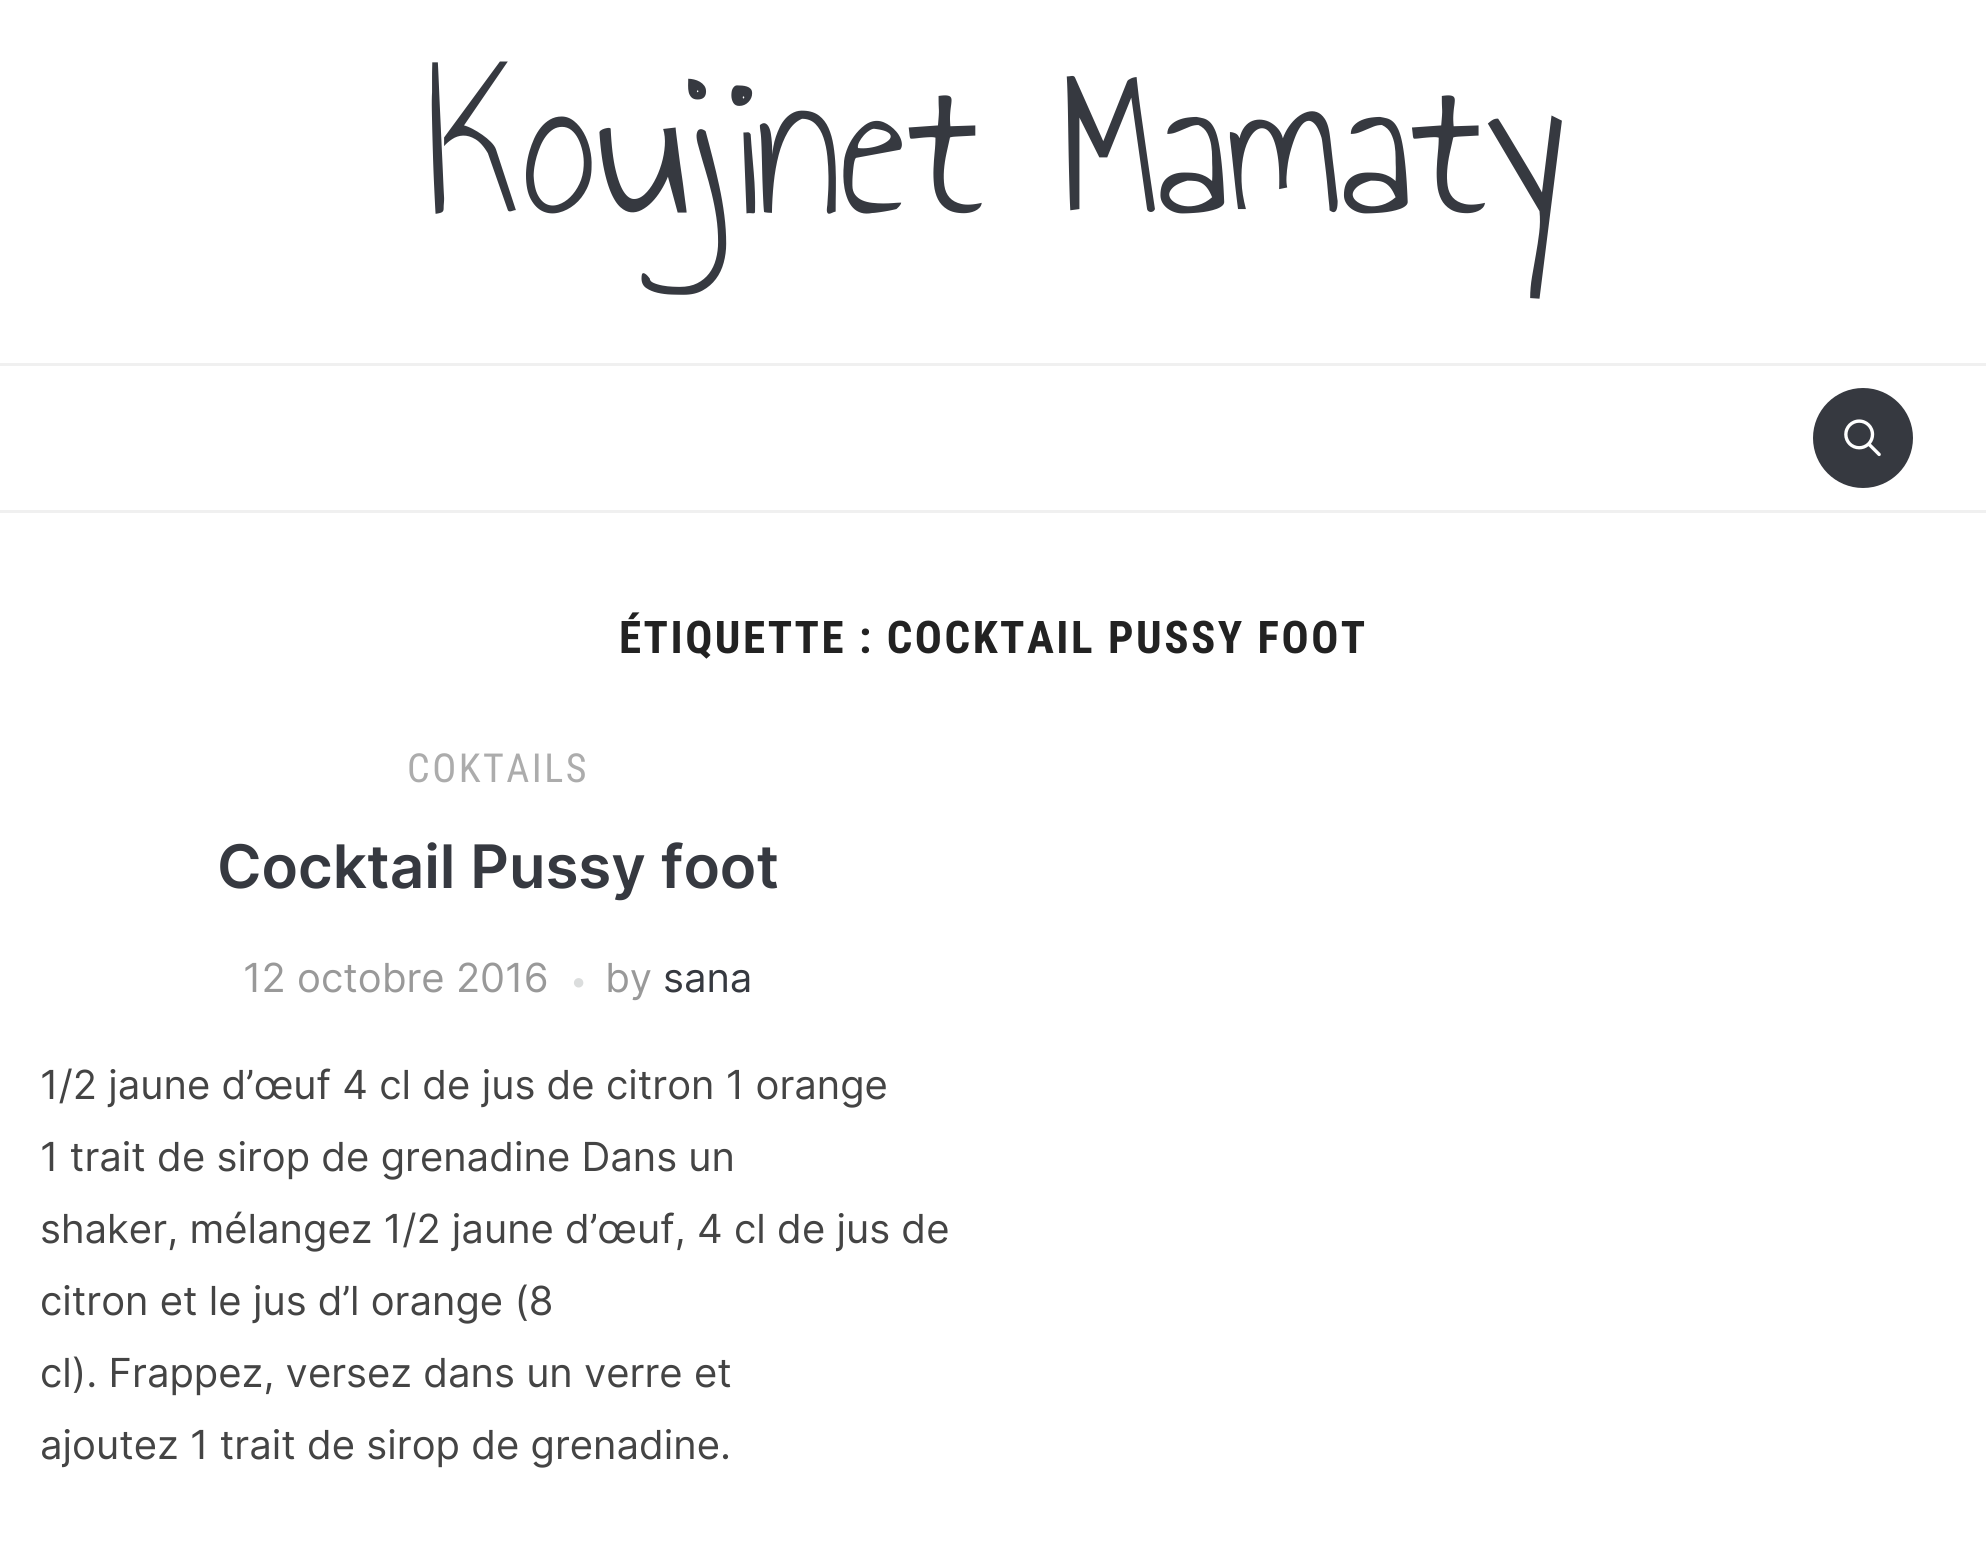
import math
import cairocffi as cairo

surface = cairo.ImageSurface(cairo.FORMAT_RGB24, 1986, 1545)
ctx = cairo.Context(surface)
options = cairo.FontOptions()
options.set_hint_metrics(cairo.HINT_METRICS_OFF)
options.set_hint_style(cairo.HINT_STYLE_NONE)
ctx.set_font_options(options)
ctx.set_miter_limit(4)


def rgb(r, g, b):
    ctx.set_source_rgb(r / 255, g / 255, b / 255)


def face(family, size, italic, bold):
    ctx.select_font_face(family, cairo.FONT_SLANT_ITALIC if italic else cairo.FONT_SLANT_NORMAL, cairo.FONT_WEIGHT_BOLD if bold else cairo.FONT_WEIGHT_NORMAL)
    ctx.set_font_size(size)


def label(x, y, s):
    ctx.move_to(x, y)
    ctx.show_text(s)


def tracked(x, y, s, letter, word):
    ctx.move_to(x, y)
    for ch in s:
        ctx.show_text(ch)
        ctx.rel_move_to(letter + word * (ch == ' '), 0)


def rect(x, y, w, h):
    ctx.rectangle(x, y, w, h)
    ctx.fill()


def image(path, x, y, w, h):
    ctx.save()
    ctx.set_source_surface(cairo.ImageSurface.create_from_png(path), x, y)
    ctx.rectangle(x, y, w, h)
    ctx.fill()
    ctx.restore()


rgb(255, 255, 255)
ctx.paint()
face('Annie Use Your Telescope', 212.5, 0, 0)
rgb(54, 57, 64)
tracked(425, 213, 'Koujinet Mamaty', -2.5, 0)
rgb(240, 240, 240)
rect(0, 363, 1986, 3)
rect(0, 510, 1986, 3)
rgb(54, 57, 64)
ctx.new_path()
ctx.arc(1863, 438, 50, 0, 2 * math.pi)
ctx.fill()
image('image0.png', 1844, 419, 37, 38)
face('Roboto Condensed', 45, 0, 1)
rgb(34, 34, 34)
tracked(619, 653, 'ÉTIQUETTE : COCKTAIL PUSSY FOOT', 2.5, 0)
face('Roboto Condensed', 40, 0, 0)
rgb(172, 172, 172)
tracked(407, 782, 'COKTAILS', 2.5, 0)
face('Inter SemiBold', 60, 0, 0)
rgb(54, 57, 64)
label(217, 888, 'Cocktail Pussy foot')
face('Inter', 40, 0, 0)
rgb(153, 153, 153)
label(243, 992, '12 octobre 2016')
face('Liberation Sans', 22, 0, 0)
rgb(219, 221, 221)
label(572, 989, '●')
face('Inter', 40, 0, 0)
rgb(153, 153, 153)
label(605, 992, 'by')
rgb(54, 57, 64)
label(663, 992, 'sana')
rgb(68, 68, 68)
label(40, 1099, '1/2 jaune d’œuf 4 cl de jus de citron 1 orange')
label(40, 1171, '1 trait de sirop de grenadine Dans un')
label(40, 1243, 'shaker, mélangez 1/2 jaune d’œuf, 4 cl de jus de')
label(40, 1315, 'citron et le jus d’l orange (8')
label(40, 1387, 'cl). Frappez, versez dans un verre et')
label(40, 1459, 'ajoutez 1 trait de sirop de grenadine.')
surface.write_to_png('render.png')
